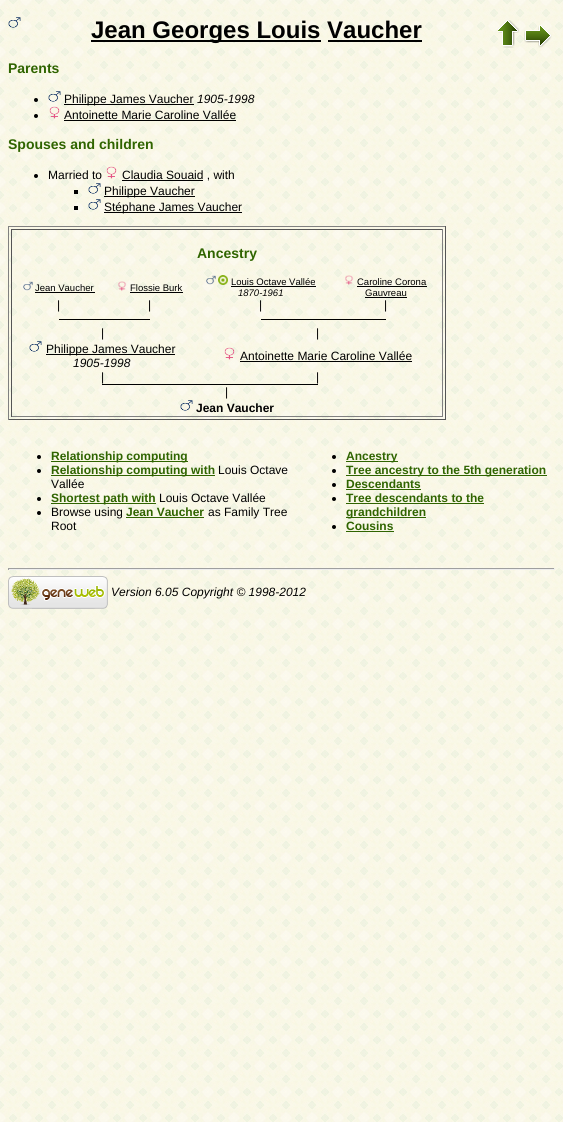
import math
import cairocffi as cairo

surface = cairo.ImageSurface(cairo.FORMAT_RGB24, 563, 1122)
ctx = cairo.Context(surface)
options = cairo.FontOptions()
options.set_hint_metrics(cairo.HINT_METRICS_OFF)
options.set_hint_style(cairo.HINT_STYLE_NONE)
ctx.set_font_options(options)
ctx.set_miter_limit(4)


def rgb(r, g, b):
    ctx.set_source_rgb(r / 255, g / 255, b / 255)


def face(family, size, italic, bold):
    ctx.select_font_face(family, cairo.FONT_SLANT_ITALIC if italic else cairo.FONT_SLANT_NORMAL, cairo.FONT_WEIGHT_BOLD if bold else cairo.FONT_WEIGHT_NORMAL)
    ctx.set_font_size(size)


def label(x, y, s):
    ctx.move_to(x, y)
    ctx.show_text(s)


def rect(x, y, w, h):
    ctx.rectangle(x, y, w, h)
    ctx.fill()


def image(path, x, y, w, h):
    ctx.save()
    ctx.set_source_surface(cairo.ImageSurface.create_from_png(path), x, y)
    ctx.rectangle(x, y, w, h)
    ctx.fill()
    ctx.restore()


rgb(255, 255, 255)
ctx.paint()
image('image0.png', 0, 0, 563, 1122)
image('image1.png', 8, 17, 13, 11)
rgb(0, 0, 0)
rect(91, 40, 230, 2)
face('Liberation Sans', 24, 0, 1)
label(91, 38, 'Jean Georges Louis Vaucher')
rect(328, 40, 94, 2)
image('image2.png', 498, 20, 22, 28)
image('image3.png', 524, 25, 28, 23)
face('Liberation Sans', 14, 0, 1)
rgb(47, 100, 0)
label(8, 73, 'Parents')
rgb(0, 0, 0)
ctx.new_path()
ctx.arc(36, 100, 2, 0, 2 * math.pi)
ctx.fill()
image('image4.png', 48, 91, 13, 11)
rect(64, 104, 130, 1)
face('Liberation Sans', 12, 0, 0)
label(64, 103, 'Philippe James Vaucher')
face('Liberation Sans', 12, 1, 0)
label(197, 103, '1905-1998')
ctx.new_path()
ctx.arc(36, 116, 2, 0, 2 * math.pi)
ctx.fill()
image('image5.png', 49, 106, 11, 13)
face('Liberation Sans', 12, 0, 0)
label(64, 119, 'Antoinette Marie Caroline Vallée')
rect(64, 120, 172, 1)
face('Liberation Sans', 14, 0, 1)
rgb(47, 100, 0)
label(8, 149, 'Spouses and children')
rgb(0, 0, 0)
ctx.new_path()
ctx.arc(36, 176, 2, 0, 2 * math.pi)
ctx.fill()
face('Liberation Sans', 12, 0, 0)
label(48, 179, 'Married to')
image('image6.png', 106, 166, 11, 13)
rect(122, 180, 81, 1)
label(122, 179, 'Claudia Souaid , with')
rect(74, 190, 4, 4)
image('image7.png', 88, 183, 13, 11)
rect(104, 196, 91, 1)
label(104, 195, 'Philippe Vaucher')
rect(74, 206, 4, 4)
image('image8.png', 88, 199, 13, 11)
rect(104, 212, 138, 1)
label(104, 211, 'Stéphane James Vaucher')
rgb(128, 128, 128)
rect(8, 226, 438, 1)
rgb(85, 85, 85)
rect(445, 226, 1, 194)
rect(8, 419, 438, 1)
rgb(128, 128, 128)
rect(8, 226, 1, 194)
rgb(85, 85, 85)
rect(11, 229, 432, 1)
rgb(128, 128, 128)
rect(442, 229, 1, 188)
rect(11, 416, 432, 1)
rgb(85, 85, 85)
rect(11, 229, 1, 188)
face('Liberation Sans', 14, 0, 1)
rgb(47, 100, 0)
label(197, 258, 'Ancestry')
image('image9.png', 23, 281, 10, 10)
face('Liberation Sans', 9.5, 0, 0)
rgb(0, 0, 0)
label(35, 291, 'Jean Vaucher')
rect(35, 292, 60, 1)
image('image10.png', 118, 281, 9, 10)
label(130, 291, 'Flossie Burk')
rect(130, 292, 53, 1)
image('image11.png', 206, 275, 10, 10)
image('image12.png', 218, 275, 10, 10)
label(231, 285, 'Louis Octave Vallée')
rect(231, 286, 85, 1)
face('Liberation Sans', 9.5, 1, 0)
label(238, 296, '1870-1961')
image('image13.png', 345, 275, 9, 10)
face('Liberation Sans', 9.5, 0, 0)
label(357, 285, 'Caroline Corona')
rect(357, 286, 70, 1)
label(365, 296, 'Gauvreau')
rect(365, 297, 42, 1)
face('Liberation Sans', 12, 0, 0)
label(57, 309, '|')
label(148, 309, '|')
label(259, 309, '|')
label(384, 309, '|')
rect(59, 319, 91, 1)
rect(261, 319, 125, 1)
label(101, 337, '|')
label(316, 337, '|')
image('image14.png', 29, 341, 13, 11)
rect(46, 354, 129, 1)
label(46, 353, 'Philippe James Vaucher')
face('Liberation Sans', 12, 1, 0)
label(73, 367, '1905-1998')
image('image15.png', 224, 347, 11, 13)
face('Liberation Sans', 12, 0, 0)
label(240, 360, 'Antoinette Marie Caroline Vallée')
rect(240, 361, 172, 1)
label(101, 381, '|')
label(316, 381, '|')
rect(102, 384, 216, 1)
label(225, 396, '|')
image('image16.png', 180, 400, 13, 11)
face('Liberation Sans', 12, 0, 1)
label(196, 412, 'Jean Vaucher')
ctx.new_path()
ctx.arc(39, 457, 2, 0, 2 * math.pi)
ctx.fill()
rgb(47, 100, 0)
rect(51, 461, 137, 1)
label(51, 460, 'Relationship computing')
rgb(0, 0, 0)
ctx.new_path()
ctx.arc(39, 471, 2, 0, 2 * math.pi)
ctx.fill()
rgb(47, 100, 0)
rect(51, 475, 164, 1)
label(51, 474, 'Relationship computing with')
face('Liberation Sans', 12, 0, 0)
rgb(0, 0, 0)
label(218, 474, 'Louis Octave')
label(51, 488, 'Vallée')
ctx.new_path()
ctx.arc(39, 499, 2, 0, 2 * math.pi)
ctx.fill()
rgb(47, 100, 0)
rect(51, 503, 105, 1)
face('Liberation Sans', 12, 0, 1)
label(51, 502, 'Shortest path with')
face('Liberation Sans', 12, 0, 0)
rgb(0, 0, 0)
label(159, 502, 'Louis Octave Vallée')
ctx.new_path()
ctx.arc(39, 513, 2, 0, 2 * math.pi)
ctx.fill()
label(51, 516, 'Browse using')
face('Liberation Sans', 12, 0, 1)
rgb(47, 100, 0)
label(126, 516, 'Jean Vaucher')
rect(126, 517, 78, 1)
face('Liberation Sans', 12, 0, 0)
rgb(0, 0, 0)
label(208, 516, 'as Family Tree')
label(51, 530, 'Root')
ctx.new_path()
ctx.arc(334, 457, 2, 0, 2 * math.pi)
ctx.fill()
rgb(47, 100, 0)
rect(346, 461, 52, 1)
face('Liberation Sans', 12, 0, 1)
label(346, 460, 'Ancestry')
rgb(0, 0, 0)
ctx.new_path()
ctx.arc(334, 471, 2, 0, 2 * math.pi)
ctx.fill()
rgb(47, 100, 0)
rect(346, 475, 201, 1)
label(346, 474, 'Tree ancestry to the 5th generation')
rgb(0, 0, 0)
ctx.new_path()
ctx.arc(334, 485, 2, 0, 2 * math.pi)
ctx.fill()
rgb(47, 100, 0)
label(346, 488, 'Descendants')
rect(346, 489, 75, 1)
rgb(0, 0, 0)
ctx.new_path()
ctx.arc(334, 499, 2, 0, 2 * math.pi)
ctx.fill()
rgb(47, 100, 0)
label(346, 502, 'Tree descendants to the')
rect(346, 503, 138, 1)
rect(346, 517, 80, 1)
label(346, 516, 'grandchildren')
rgb(0, 0, 0)
ctx.new_path()
ctx.arc(334, 527, 2, 0, 2 * math.pi)
ctx.fill()
rgb(47, 100, 0)
label(346, 530, 'Cousins')
rect(346, 531, 48, 1)
rgb(159, 159, 159)
rect(8, 568, 547, 1)
rgb(238, 238, 238)
rect(554, 568, 1, 2)
rect(8, 569, 547, 1)
rgb(159, 159, 159)
rect(8, 568, 1, 2)
image('image17.png', 8, 576, 100, 33)
face('Liberation Sans', 12, 1, 0)
rgb(0, 0, 0)
label(111, 596, 'Version 6.05 Copyright © 1998-2012')
surface.write_to_png('render.png')
